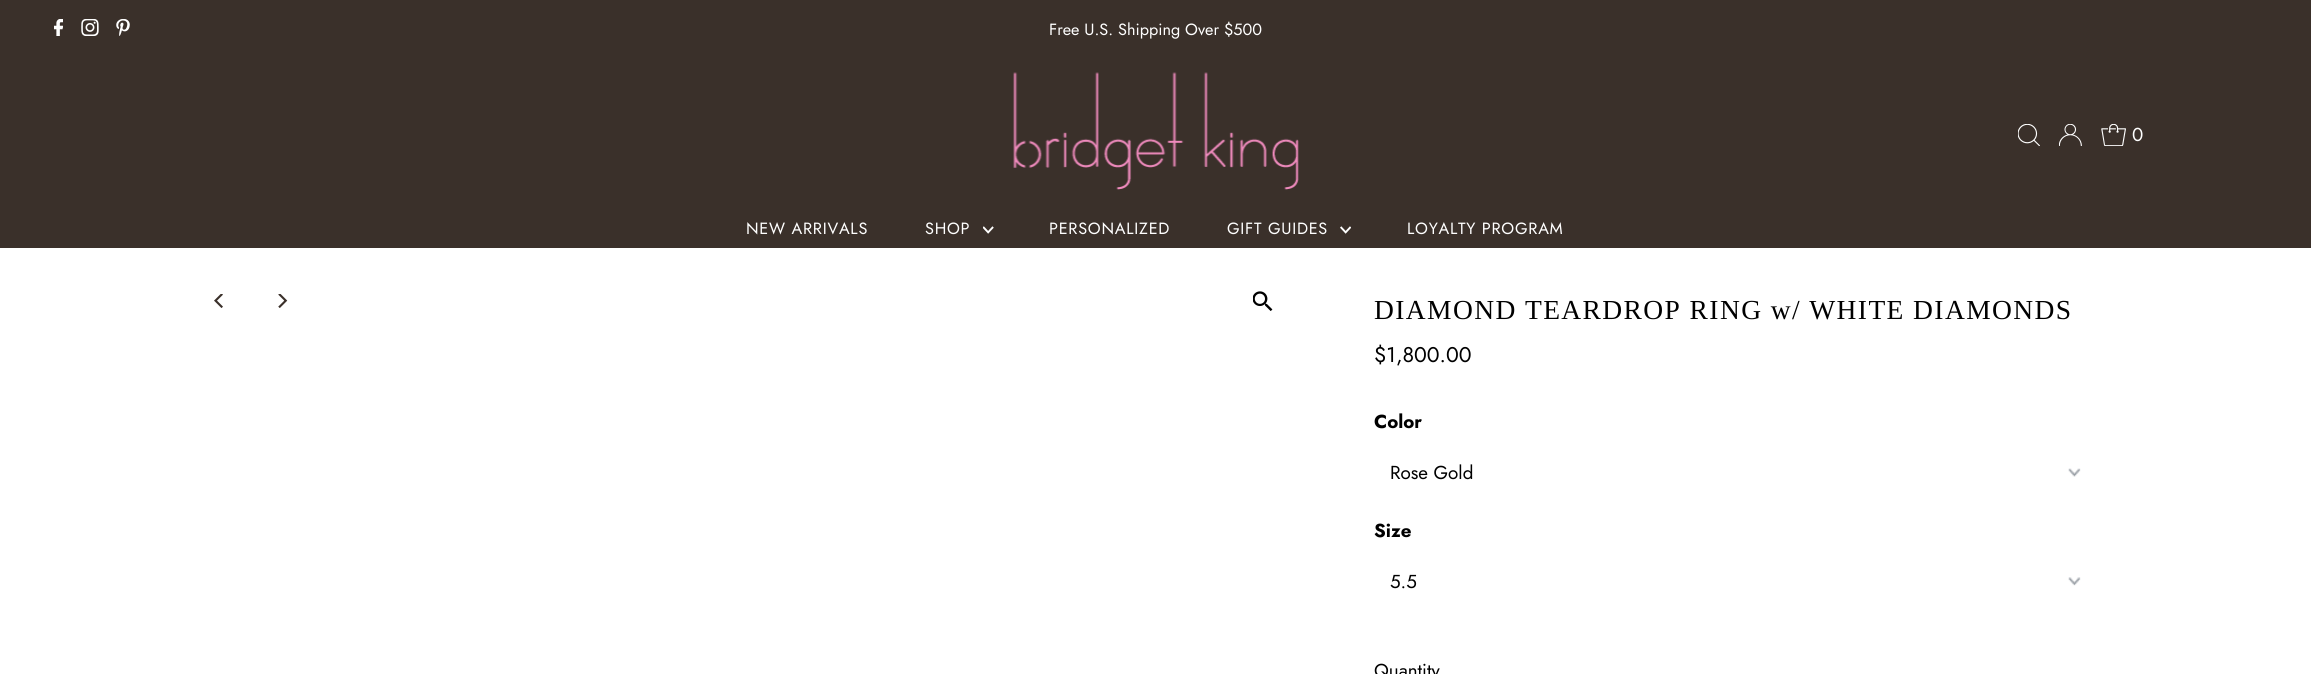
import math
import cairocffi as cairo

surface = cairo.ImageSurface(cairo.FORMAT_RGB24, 2311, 674)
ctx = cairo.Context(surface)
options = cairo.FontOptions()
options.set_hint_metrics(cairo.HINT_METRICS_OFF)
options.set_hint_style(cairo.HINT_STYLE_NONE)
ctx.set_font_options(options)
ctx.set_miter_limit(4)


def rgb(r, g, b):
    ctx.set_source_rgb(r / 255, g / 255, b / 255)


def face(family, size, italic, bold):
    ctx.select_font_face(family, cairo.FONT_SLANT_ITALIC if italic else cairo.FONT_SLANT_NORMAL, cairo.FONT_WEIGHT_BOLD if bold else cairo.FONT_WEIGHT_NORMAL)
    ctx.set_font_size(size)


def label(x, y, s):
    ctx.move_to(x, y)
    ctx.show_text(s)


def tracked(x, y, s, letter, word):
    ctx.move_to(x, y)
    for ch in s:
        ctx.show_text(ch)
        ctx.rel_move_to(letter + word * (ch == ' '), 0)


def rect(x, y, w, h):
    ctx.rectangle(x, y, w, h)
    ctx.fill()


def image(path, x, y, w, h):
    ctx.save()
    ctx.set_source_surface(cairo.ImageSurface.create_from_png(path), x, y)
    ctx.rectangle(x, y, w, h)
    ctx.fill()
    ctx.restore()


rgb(255, 255, 255)
ctx.paint()
rgb(58, 48, 42)
rect(0, 0, 2311, 248)
image('image0.png', 54, 19, 9, 17)
image('image1.png', 81, 19, 18, 17)
image('image2.png', 116, 19, 14, 17)
face('Jost', 16.25, 0, 0)
rgb(255, 255, 255)
label(1049, 35, 'Free U.S. Shipping Over $500')
image('image3.png', 1013, 72, 286, 118)
image('image4.png', 2018, 124, 22, 22)
image('image5.png', 2059, 124, 23, 22)
image('image6.png', 2101, 124, 25, 22)
face('Jost', 18.75, 0, 0)
label(2132, 141, '0')
face('Jost', 16.25, 0, 0)
tracked(746, 234, 'NEW ARRIVALS', 0.75, 0)
tracked(925, 234, 'SHOP', 0.75, 0)
image('image7.png', 983, 226, 11, 8)
tracked(1049, 234, 'PERSONALIZED', 0.75, 0)
tracked(1227, 234, 'GIFT GUIDES', 0.75, 0)
image('image8.png', 1340, 226, 11, 8)
tracked(1407, 234, 'LOYALTY PROGRAM', 0.75, 0)
image('image9.png', 214, 294, 9, 14)
image('image10.png', 278, 294, 10, 14)
image('image11.png', 1253, 291, 20, 20)
face('Liberation Serif', 27.5, 0, 0)
rgb(0, 0, 0)
tracked(1374, 319, 'DIAMOND TEARDROP RING w/ WHITE DIAMONDS', 1.4, 0)
face('Jost', 21.25, 0, 0)
label(1374, 362, '$1,800.00')
face('Jost', 18.75, 0, 1)
label(1374, 428, 'Color')
image('image12.png', 2068, 468, 13, 9)
face('Jost', 18.75, 0, 0)
label(1390, 479, 'Rose Gold')
face('Jost', 18.75, 0, 1)
label(1374, 537, 'Size')
image('image13.png', 2068, 577, 13, 9)
face('Jost', 18.75, 0, 0)
label(1390, 588, '5.5')
label(1374, 677, 'Quantity')
surface.write_to_png('render.png')
